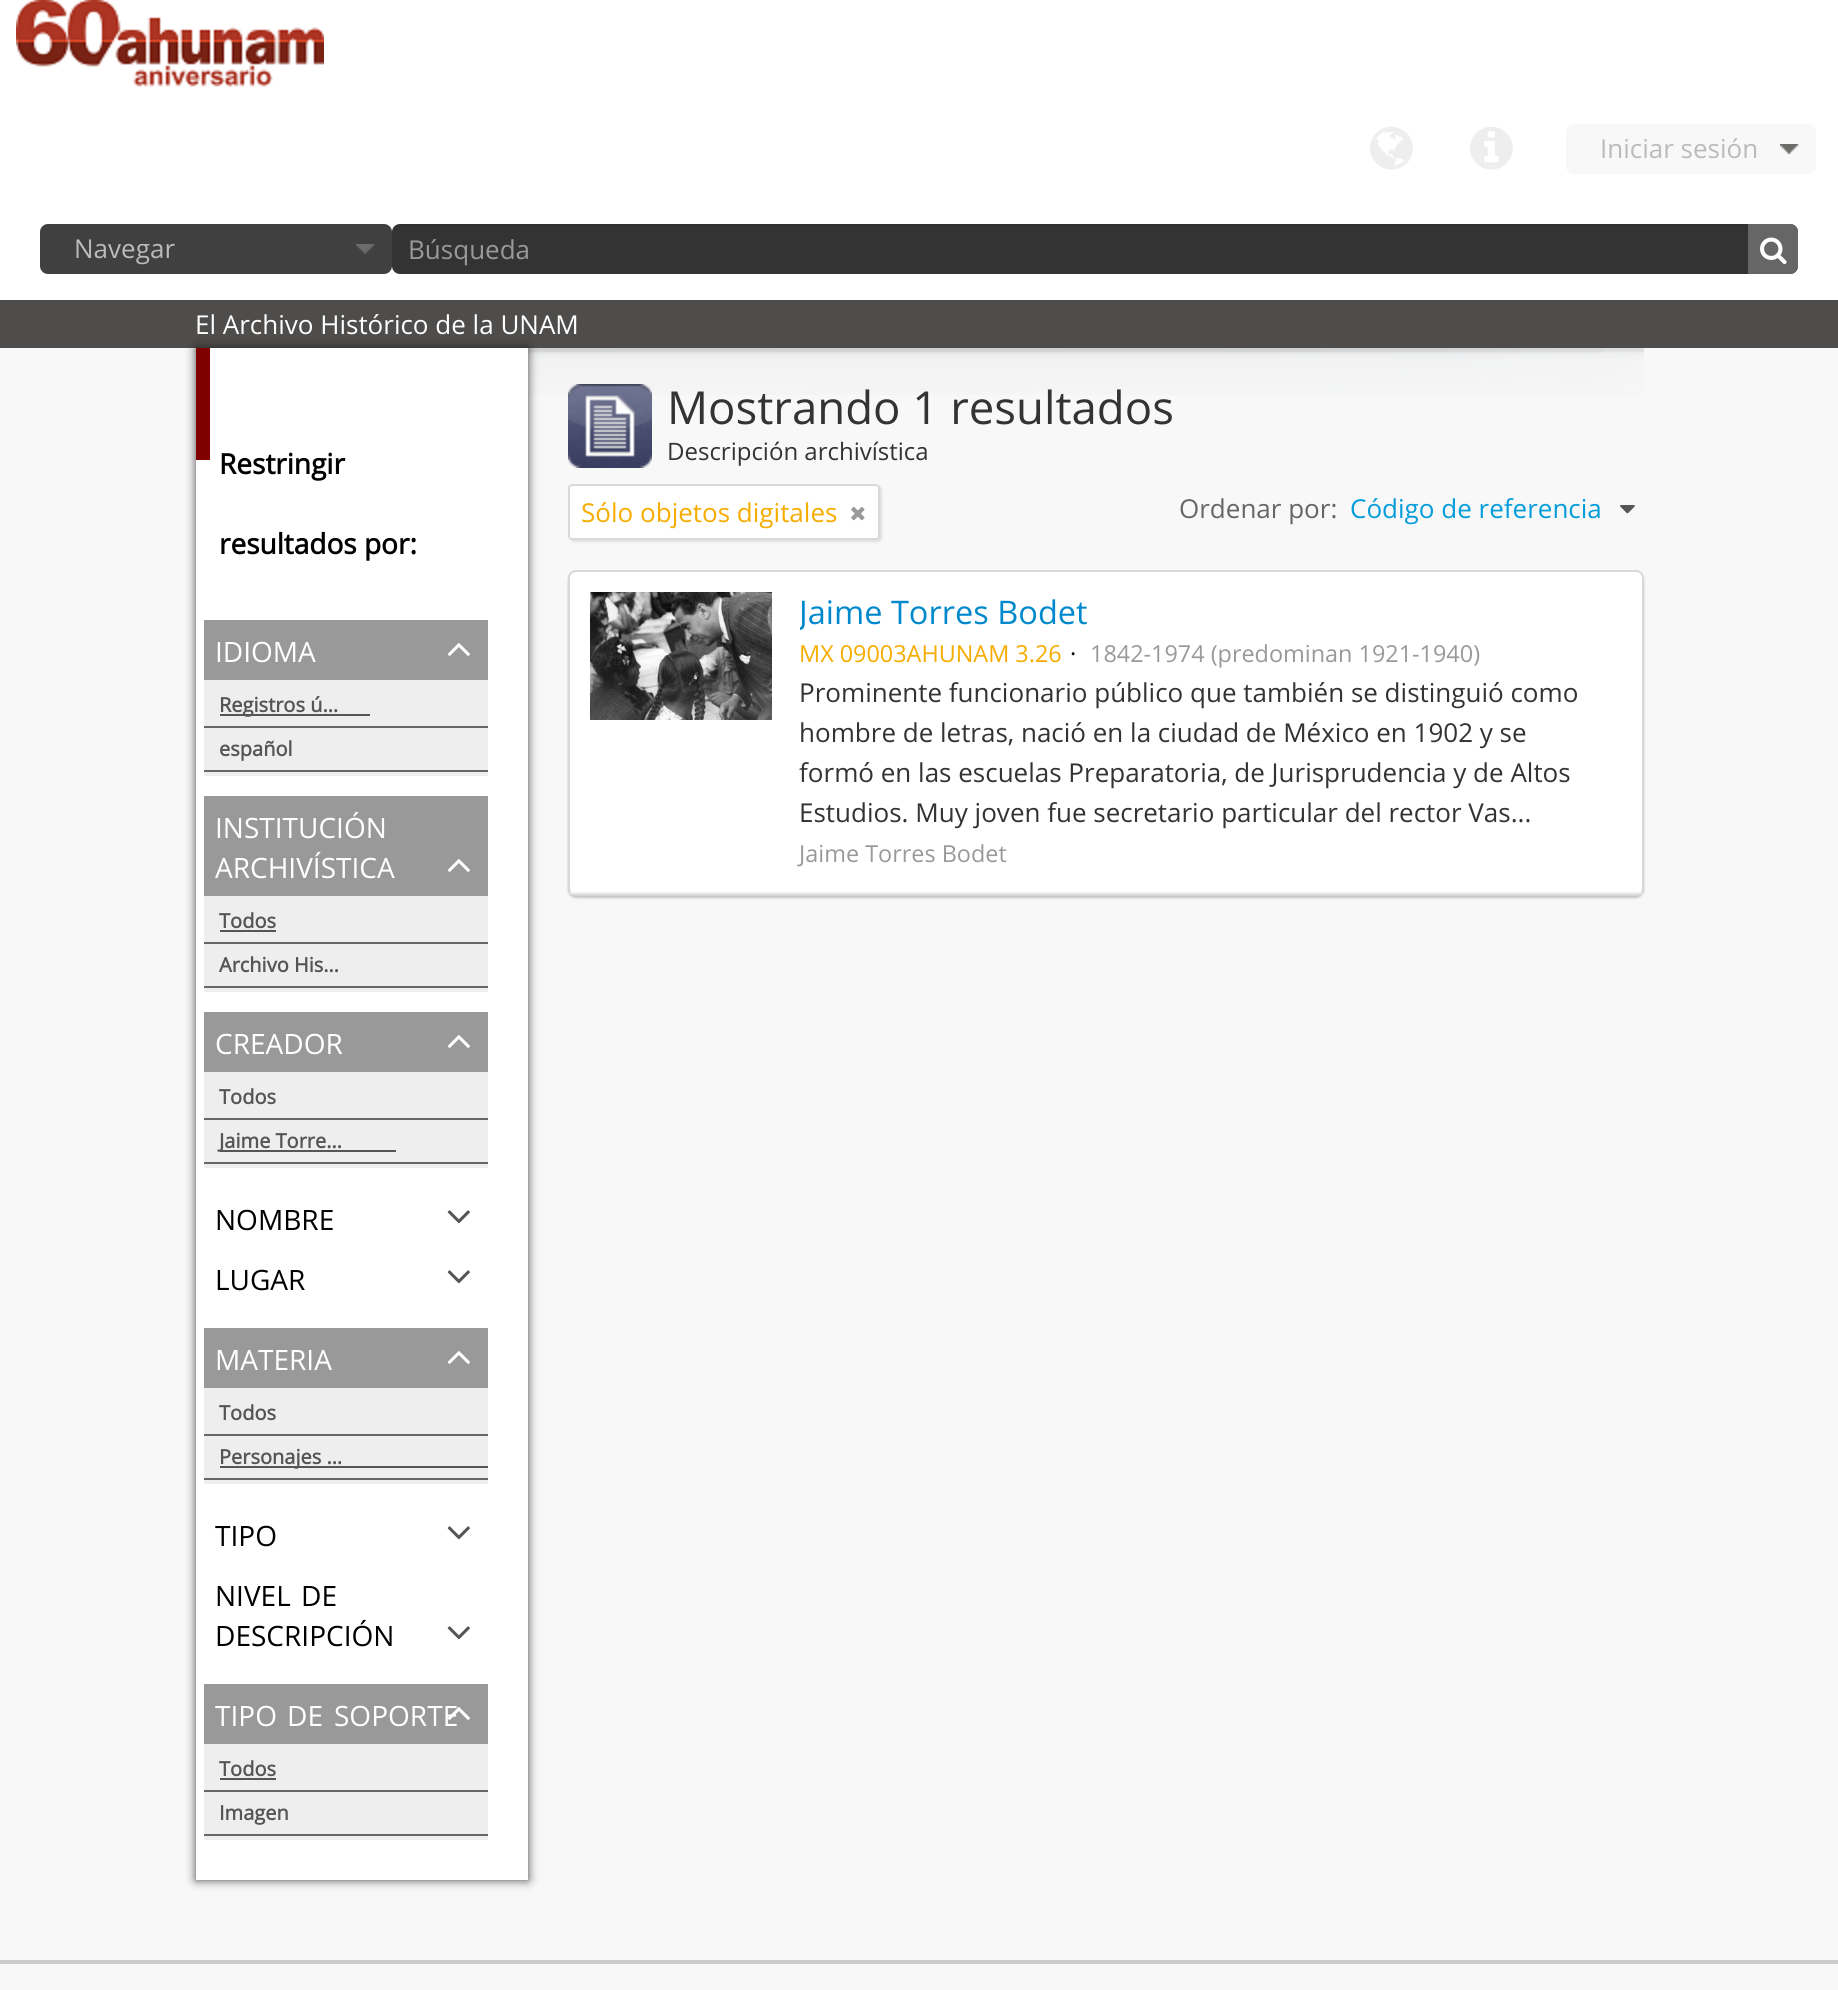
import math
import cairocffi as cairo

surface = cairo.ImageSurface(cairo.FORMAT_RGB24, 1838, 1990)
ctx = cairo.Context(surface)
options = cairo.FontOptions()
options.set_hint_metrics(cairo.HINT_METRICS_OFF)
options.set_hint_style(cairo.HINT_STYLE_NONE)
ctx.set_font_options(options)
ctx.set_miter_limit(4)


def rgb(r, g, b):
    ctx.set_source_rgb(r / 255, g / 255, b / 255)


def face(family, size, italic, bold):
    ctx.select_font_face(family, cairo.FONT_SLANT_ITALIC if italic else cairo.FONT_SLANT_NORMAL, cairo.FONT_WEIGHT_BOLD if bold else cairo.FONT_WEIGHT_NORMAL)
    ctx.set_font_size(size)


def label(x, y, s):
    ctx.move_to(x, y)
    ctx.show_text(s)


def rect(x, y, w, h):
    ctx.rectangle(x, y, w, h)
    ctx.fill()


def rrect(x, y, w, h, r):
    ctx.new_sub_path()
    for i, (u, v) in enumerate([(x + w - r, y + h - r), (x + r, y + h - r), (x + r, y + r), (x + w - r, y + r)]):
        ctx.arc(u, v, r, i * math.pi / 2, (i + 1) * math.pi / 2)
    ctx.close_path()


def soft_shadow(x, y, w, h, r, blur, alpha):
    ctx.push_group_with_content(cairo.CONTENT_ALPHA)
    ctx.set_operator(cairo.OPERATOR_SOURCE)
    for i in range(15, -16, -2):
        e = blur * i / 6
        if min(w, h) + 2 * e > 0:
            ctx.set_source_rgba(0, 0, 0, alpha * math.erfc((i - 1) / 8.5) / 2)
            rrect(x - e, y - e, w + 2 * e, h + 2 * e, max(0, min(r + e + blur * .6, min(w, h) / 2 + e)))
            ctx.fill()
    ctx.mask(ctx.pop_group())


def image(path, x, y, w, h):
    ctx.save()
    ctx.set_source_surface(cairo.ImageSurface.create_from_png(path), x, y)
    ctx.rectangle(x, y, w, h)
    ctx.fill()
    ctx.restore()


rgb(248, 248, 248)
ctx.paint()
rgb(255, 255, 255)
rect(0, 0, 1838, 300)
image('image0.png', 16, 0, 308, 87)
image('image1.png', 1370, 126, 43, 44)
image('image2.png', 1470, 126, 43, 44)
rgb(248, 248, 248)
rrect(1566, 124, 250, 50, 8)
ctx.fill()
image('image3.png', 1780, 144, 19, 10)
face('Open Sans', 26, 0, 0)
rgb(187, 187, 187)
label(1600, 158, 'Iniciar sesión')
rgb(64, 64, 64)
rrect(40, 224, 352, 50, 8)
ctx.fill()
image('image4.png', 356, 244, 19, 10)
rgb(187, 187, 187)
label(74, 258, 'Navegar')
rgb(51, 51, 51)
rrect(392, 224, 1406, 50, 8)
ctx.fill()
ctx.set_source_rgba(0, 0, 0, 0.07)
ctx.new_path()
ctx.move_to(400, 226)
ctx.line_to(1790, 226)
ctx.curve_to(1794, 226, 1798, 230, 1798, 234)
ctx.line_to(1798, 232)
ctx.curve_to(1798, 228, 1794, 224, 1790, 224)
ctx.line_to(400, 224)
ctx.curve_to(396, 224, 392, 228, 392, 232)
ctx.line_to(392, 234)
ctx.curve_to(392, 230, 396, 226, 400, 226)
ctx.close_path()
ctx.fill()
rgb(153, 153, 153)
label(408, 259, 'Búsqueda')
rgb(102, 102, 102)
ctx.new_path()
ctx.move_to(1748, 224)
ctx.line_to(1790, 224)
ctx.curve_to(1794.5, 224, 1798, 227.5, 1798, 232)
ctx.line_to(1798, 266)
ctx.curve_to(1798, 270.5, 1794.5, 274, 1790, 274)
ctx.line_to(1748, 274)
ctx.close_path()
ctx.fill()
image('image5.png', 1760, 237, 27, 28)
image('image6.png', 528, 348, 1116, 47)
rgb(68, 68, 68)
soft_shadow(196, 348, 332, 1532, 0, 5, 1)
ctx.set_source_rgba(0.086, 0.082, 0.078, 0.75)
rect(0, 300, 1838, 48)
rgb(255, 255, 255)
label(195, 334, 'El Archivo Histórico de la UNAM')
rect(196, 348, 332, 1532)
rgb(128, 0, 0)
rect(196, 348, 14, 112)
face('Open Sans', 28, 0, 1)
rgb(0, 0, 0)
label(219, 474, 'Restringir')
label(219, 554, 'resultados por:')
rgb(153, 153, 153)
rect(204, 620, 284, 60)
face('Open Sans', 28, 0, 0)
rgb(255, 255, 255)
label(215, 662, 'IDIOMA')
image('image7.png', 447, 643, 23, 13)
rgb(238, 238, 238)
rect(204, 680, 284, 96)
rgb(102, 102, 102)
rect(204, 726, 284, 2)
rgb(85, 85, 85)
rect(220, 714, 150, 2)
face('Open Sans', 20, 0, 1)
label(219, 712, 'Registros ú…')
rgb(102, 102, 102)
rect(204, 770, 284, 2)
rgb(85, 85, 85)
label(219, 756, 'español')
rgb(153, 153, 153)
rect(204, 796, 284, 100)
face('Open Sans', 28, 0, 0)
rgb(255, 255, 255)
label(215, 838, 'INSTITUCIÓN')
label(215, 878, 'ARCHIVÍSTICA')
image('image7.png', 447, 859, 23, 13)
rgb(238, 238, 238)
rect(204, 896, 284, 96)
rgb(102, 102, 102)
rect(204, 942, 284, 2)
face('Open Sans', 20, 0, 1)
rgb(85, 85, 85)
label(219, 928, 'Todos')
rect(220, 930, 56, 2)
rgb(102, 102, 102)
rect(204, 986, 284, 2)
rgb(85, 85, 85)
label(219, 972, 'Archivo His…')
rgb(153, 153, 153)
rect(204, 1012, 284, 60)
face('Open Sans', 28, 0, 0)
rgb(255, 255, 255)
label(215, 1054, 'CREADOR')
image('image7.png', 447, 1035, 23, 13)
rgb(238, 238, 238)
rect(204, 1072, 284, 96)
rgb(102, 102, 102)
rect(204, 1118, 284, 2)
face('Open Sans', 20, 0, 1)
rgb(85, 85, 85)
label(219, 1104, 'Todos')
rgb(102, 102, 102)
rect(204, 1162, 284, 2)
rgb(85, 85, 85)
rect(220, 1150, 176, 2)
label(219, 1148, 'Jaime Torre…')
face('Open Sans', 28, 0, 0)
rgb(0, 0, 0)
label(215, 1230, 'NOMBRE')
image('image8.png', 447, 1210, 23, 14)
label(215, 1290, 'LUGAR')
image('image8.png', 447, 1270, 23, 14)
rgb(153, 153, 153)
rect(204, 1328, 284, 60)
rgb(255, 255, 255)
label(215, 1370, 'MATERIA')
image('image7.png', 447, 1351, 23, 13)
rgb(238, 238, 238)
rect(204, 1388, 284, 96)
rgb(102, 102, 102)
rect(204, 1434, 284, 2)
face('Open Sans', 20, 0, 1)
rgb(85, 85, 85)
label(219, 1420, 'Todos')
rgb(102, 102, 102)
rect(204, 1478, 284, 2)
rgb(85, 85, 85)
rect(220, 1466, 268, 2)
label(219, 1464, 'Personajes …')
face('Open Sans', 28, 0, 0)
rgb(0, 0, 0)
label(215, 1546, 'TIPO')
image('image8.png', 447, 1526, 23, 14)
label(215, 1606, 'NIVEL')
label(301, 1606, 'DE')
label(215, 1646, 'DESCRIPCIÓN')
image('image8.png', 447, 1626, 23, 14)
rgb(153, 153, 153)
rect(204, 1684, 284, 60)
rgb(255, 255, 255)
label(215, 1726, 'TIPO')
label(287, 1726, 'DE')
label(334, 1726, 'SOPORTE')
image('image9.png', 447, 1707, 23, 13)
rgb(238, 238, 238)
rect(204, 1744, 284, 96)
rgb(102, 102, 102)
rect(204, 1790, 284, 2)
face('Open Sans', 20, 0, 1)
rgb(85, 85, 85)
label(219, 1776, 'Todos')
rect(220, 1778, 56, 2)
rgb(102, 102, 102)
rect(204, 1834, 284, 2)
rgb(85, 85, 85)
label(219, 1820, 'Imagen')
image('image10.png', 568, 384, 84, 84)
face('Open Sans', 45.5, 0, 0)
rgb(51, 51, 51)
label(667, 424, 'Mostrando 1 resultados')
face('Open Sans', 24, 0, 0)
label(667, 460, 'Descripción archivística')
rgb(0, 0, 0)
soft_shadow(570, 486, 312, 56, 4, 1, 0.1)
rgb(255, 255, 255)
rrect(569, 485, 310, 54, 3)
ctx.fill_preserve()
rgb(217, 217, 217)
ctx.stroke()
face('Open Sans', 26, 0, 0)
rgb(246, 172, 0)
label(581, 522, 'Sólo objetos digitales')
image('image11.png', 851, 507, 14, 14)
rgb(102, 102, 102)
label(1179, 518, 'Ordenar por:')
rgb(4, 156, 219)
label(1350, 518, 'Código de referencia')
image('image12.png', 1620, 505, 15, 9)
rgb(0, 0, 0)
soft_shadow(568, 572, 1076, 326, 8, 1, 0.2)
rgb(255, 255, 255)
rrect(569, 571, 1074, 324, 7)
ctx.fill_preserve()
rgb(217, 217, 217)
ctx.stroke()
rgb(238, 238, 238)
rect(570, 892, 1072, 2)
image('image13.png', 590, 592, 182, 128)
ctx.save()
ctx.rectangle(800, 592, 794, 40)
ctx.clip()
face('Open Sans', 32.5, 0, 0)
rgb(0, 136, 204)
label(799, 624, 'Jaime Torres Bodet')
ctx.restore()
face('Open Sans', 23.4, 0, 0)
rgb(246, 172, 0)
label(799, 662, 'MX 09003AHUNAM 3.26')
rgb(0, 0, 0)
label(1070, 662, '·')
rgb(153, 153, 153)
label(1090, 662, '1842-1974 (predominan 1921-1940)')
face('Open Sans', 26, 0, 0)
rgb(51, 51, 51)
label(799, 702, 'Prominente funcionario público que también se distinguió como')
label(799, 742, 'hombre de letras, nació en la ciudad de México en 1902 y se')
label(799, 782, 'formó en las escuelas Preparatoria, de Jurisprudencia y de Altos')
label(799, 822, 'Estudios. Muy joven fue secretario particular del rector Vas...')
face('Open Sans', 23.4, 0, 0)
rgb(153, 153, 153)
label(799, 862, 'Jaime Torres Bodet')
rgb(204, 204, 202)
rect(0, 1960, 1838, 4)
surface.write_to_png('render.png')
